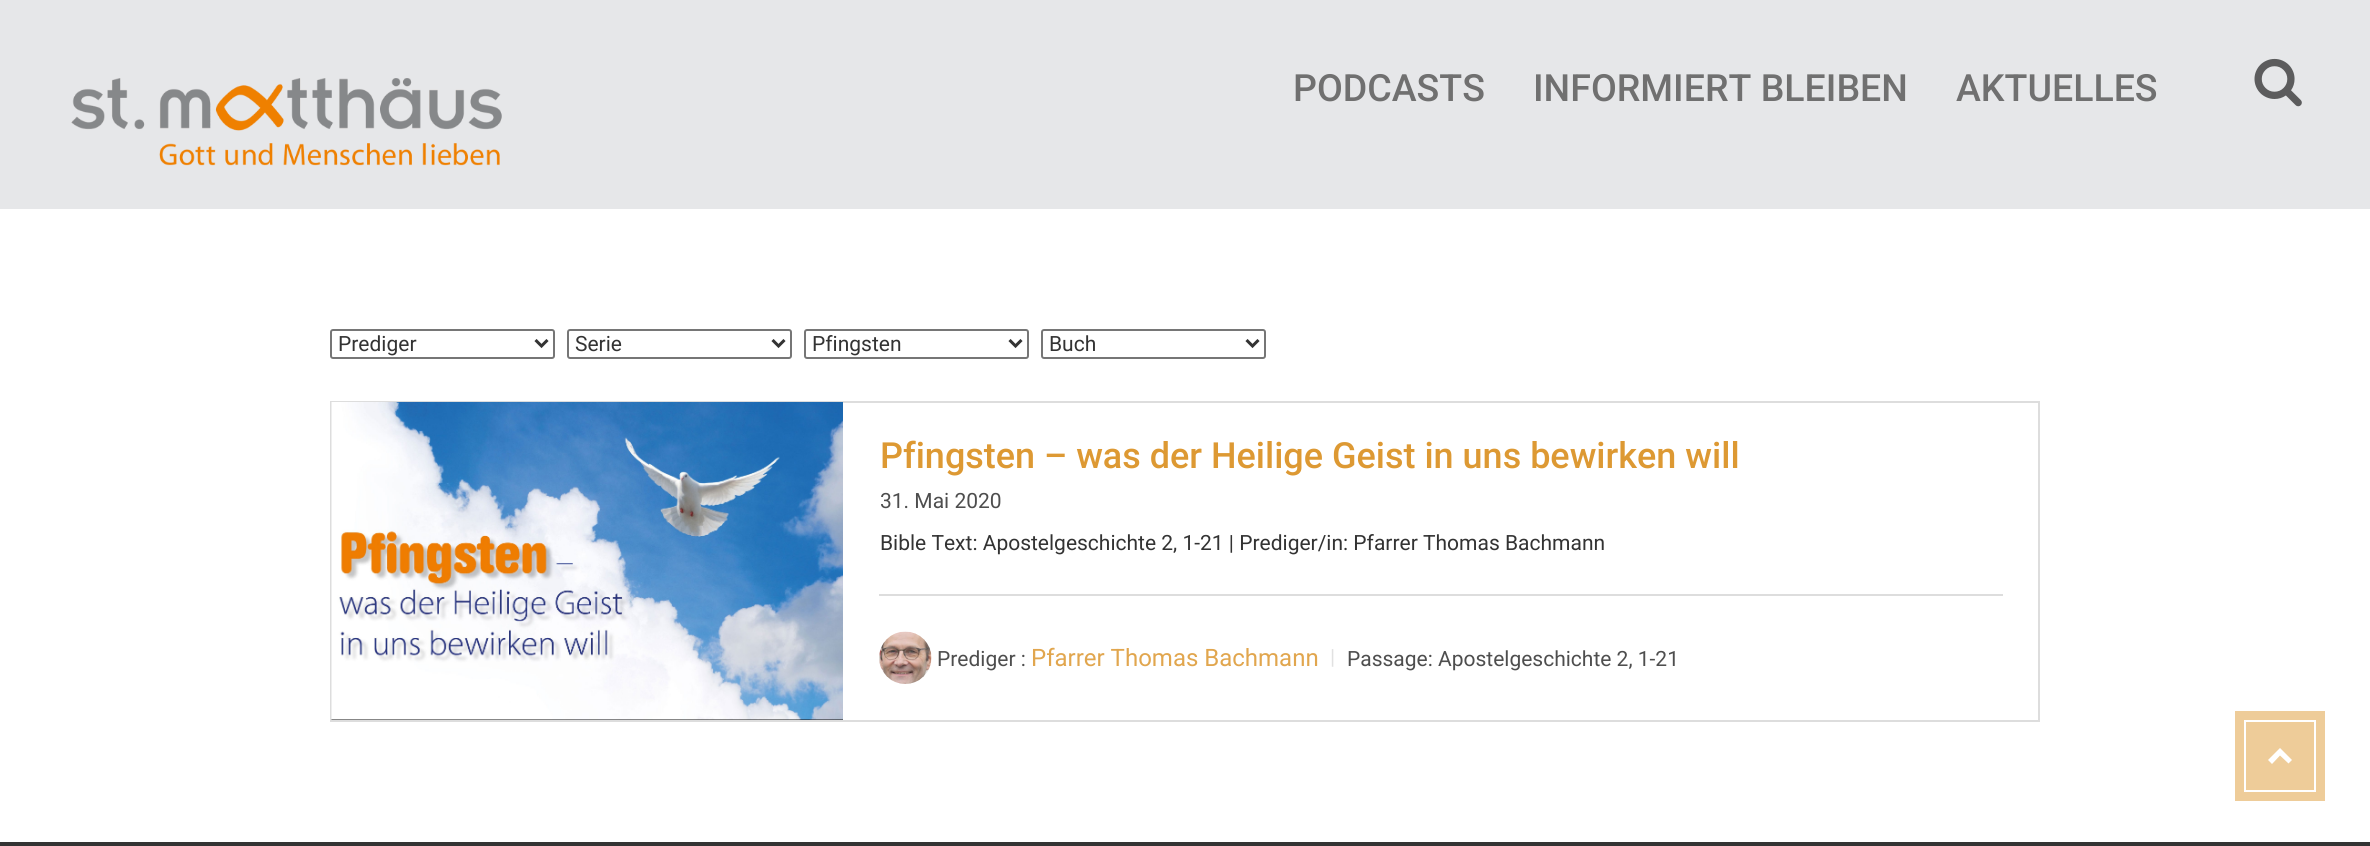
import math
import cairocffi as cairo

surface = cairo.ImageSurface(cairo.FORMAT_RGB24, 2370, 846)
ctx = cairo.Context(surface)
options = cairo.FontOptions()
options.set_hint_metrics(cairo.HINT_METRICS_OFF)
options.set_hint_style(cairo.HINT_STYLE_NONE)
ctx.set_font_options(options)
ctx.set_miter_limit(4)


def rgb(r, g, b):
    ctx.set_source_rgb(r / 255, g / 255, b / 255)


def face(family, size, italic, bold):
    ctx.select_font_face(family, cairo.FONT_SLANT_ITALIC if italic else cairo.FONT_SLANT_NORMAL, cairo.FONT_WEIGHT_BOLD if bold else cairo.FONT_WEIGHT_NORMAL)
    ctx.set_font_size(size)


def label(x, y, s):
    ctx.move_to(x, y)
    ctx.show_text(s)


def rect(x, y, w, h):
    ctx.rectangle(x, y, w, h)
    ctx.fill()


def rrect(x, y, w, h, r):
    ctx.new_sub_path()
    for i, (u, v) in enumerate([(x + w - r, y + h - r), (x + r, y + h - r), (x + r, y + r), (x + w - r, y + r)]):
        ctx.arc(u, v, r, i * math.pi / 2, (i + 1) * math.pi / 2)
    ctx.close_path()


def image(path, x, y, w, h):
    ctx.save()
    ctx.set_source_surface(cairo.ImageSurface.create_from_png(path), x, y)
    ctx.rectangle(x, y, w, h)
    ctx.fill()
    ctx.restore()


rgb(255, 255, 255)
ctx.paint()
rgb(230, 231, 233)
rect(0, 0, 2370, 209)
image('image0.png', 71, 78, 431, 88)
face('Roboto Medium', 37.5, 0, 0)
rgb(112, 112, 112)
label(1293, 101, 'PODCASTS')
label(1533, 101, 'INFORMIERT BLEIBEN')
label(1956, 101, 'AKTUELLES')
image('image1.png', 2254, 58, 48, 49)
rrect(331, 330, 223, 28, 2)
rgb(118, 118, 118)
ctx.stroke()
ctx.new_path()
ctx.move_to(535.5, 340)
ctx.line_to(541.5, 346)
ctx.line_to(547.5, 340)
rgb(51, 51, 51)
ctx.set_line_width(3)
ctx.stroke()
face('Roboto', 21, 0, 0)
label(338, 351, 'Prediger')
rrect(568, 330, 223, 28, 2)
rgb(118, 118, 118)
ctx.set_line_width(2)
ctx.stroke()
ctx.new_path()
ctx.move_to(772.5, 340)
ctx.line_to(778.5, 346)
ctx.line_to(784.5, 340)
rgb(51, 51, 51)
ctx.set_line_width(3)
ctx.stroke()
label(575, 351, 'Serie')
rrect(805, 330, 223, 28, 2)
rgb(118, 118, 118)
ctx.set_line_width(2)
ctx.stroke()
ctx.new_path()
ctx.move_to(1009.5, 340)
ctx.line_to(1015.5, 346)
ctx.line_to(1021.5, 340)
rgb(51, 51, 51)
ctx.set_line_width(3)
ctx.stroke()
label(812, 351, 'Pfingsten')
rrect(1042, 330, 223, 28, 2)
rgb(118, 118, 118)
ctx.set_line_width(2)
ctx.stroke()
ctx.new_path()
ctx.move_to(1246.5, 340)
ctx.line_to(1252.5, 346)
ctx.line_to(1258.5, 340)
rgb(51, 51, 51)
ctx.set_line_width(3)
ctx.stroke()
label(1049, 351, 'Buch')
ctx.rectangle(331, 402, 1708, 319)
rgb(221, 221, 221)
ctx.set_line_width(2)
ctx.stroke()
image('image2.png', 331, 402, 512, 318)
face('Roboto Medium', 36, 0, 0)
rgb(221, 153, 51)
label(880, 468, 'Pfingsten – was der Heilige Geist in uns bewirken will')
face('Roboto', 21, 0, 0)
rgb(78, 78, 78)
label(880, 508, '31. Mai 2020')
rgb(51, 51, 51)
label(880, 550, 'Bible Text: Apostelgeschichte 2, 1-21 | Prediger/in: Pfarrer Thomas Bachmann')
rgb(221, 221, 221)
rect(879, 594, 1124, 2)
image('image3.png', 879, 631, 53, 53)
rgb(78, 78, 78)
label(937, 666, 'Prediger :')
face('Roboto', 24, 0, 0)
rgb(225, 166, 78)
label(1031, 666, 'Pfarrer Thomas Bachmann')
face('Roboto', 21, 0, 0)
rgb(225, 225, 225)
label(1330, 664, '|')
rgb(78, 78, 78)
label(1347, 666, 'Passage: Apostelgeschichte 2, 1-21')
rgb(51, 51, 51)
rect(0, 842, 2370, 4)
rgb(238, 204, 153)
rect(2235, 711, 90, 90)
rgb(255, 255, 255)
ctx.new_path()
ctx.move_to(2280, 748)
ctx.line_to(2292, 760)
ctx.line_to(2288.5, 763.5)
ctx.line_to(2280, 755.5)
ctx.line_to(2272, 764)
ctx.line_to(2268, 760)
ctx.close_path()
ctx.fill()
ctx.rectangle(2245, 721, 70, 70)
ctx.stroke()
surface.write_to_png('render.png')
